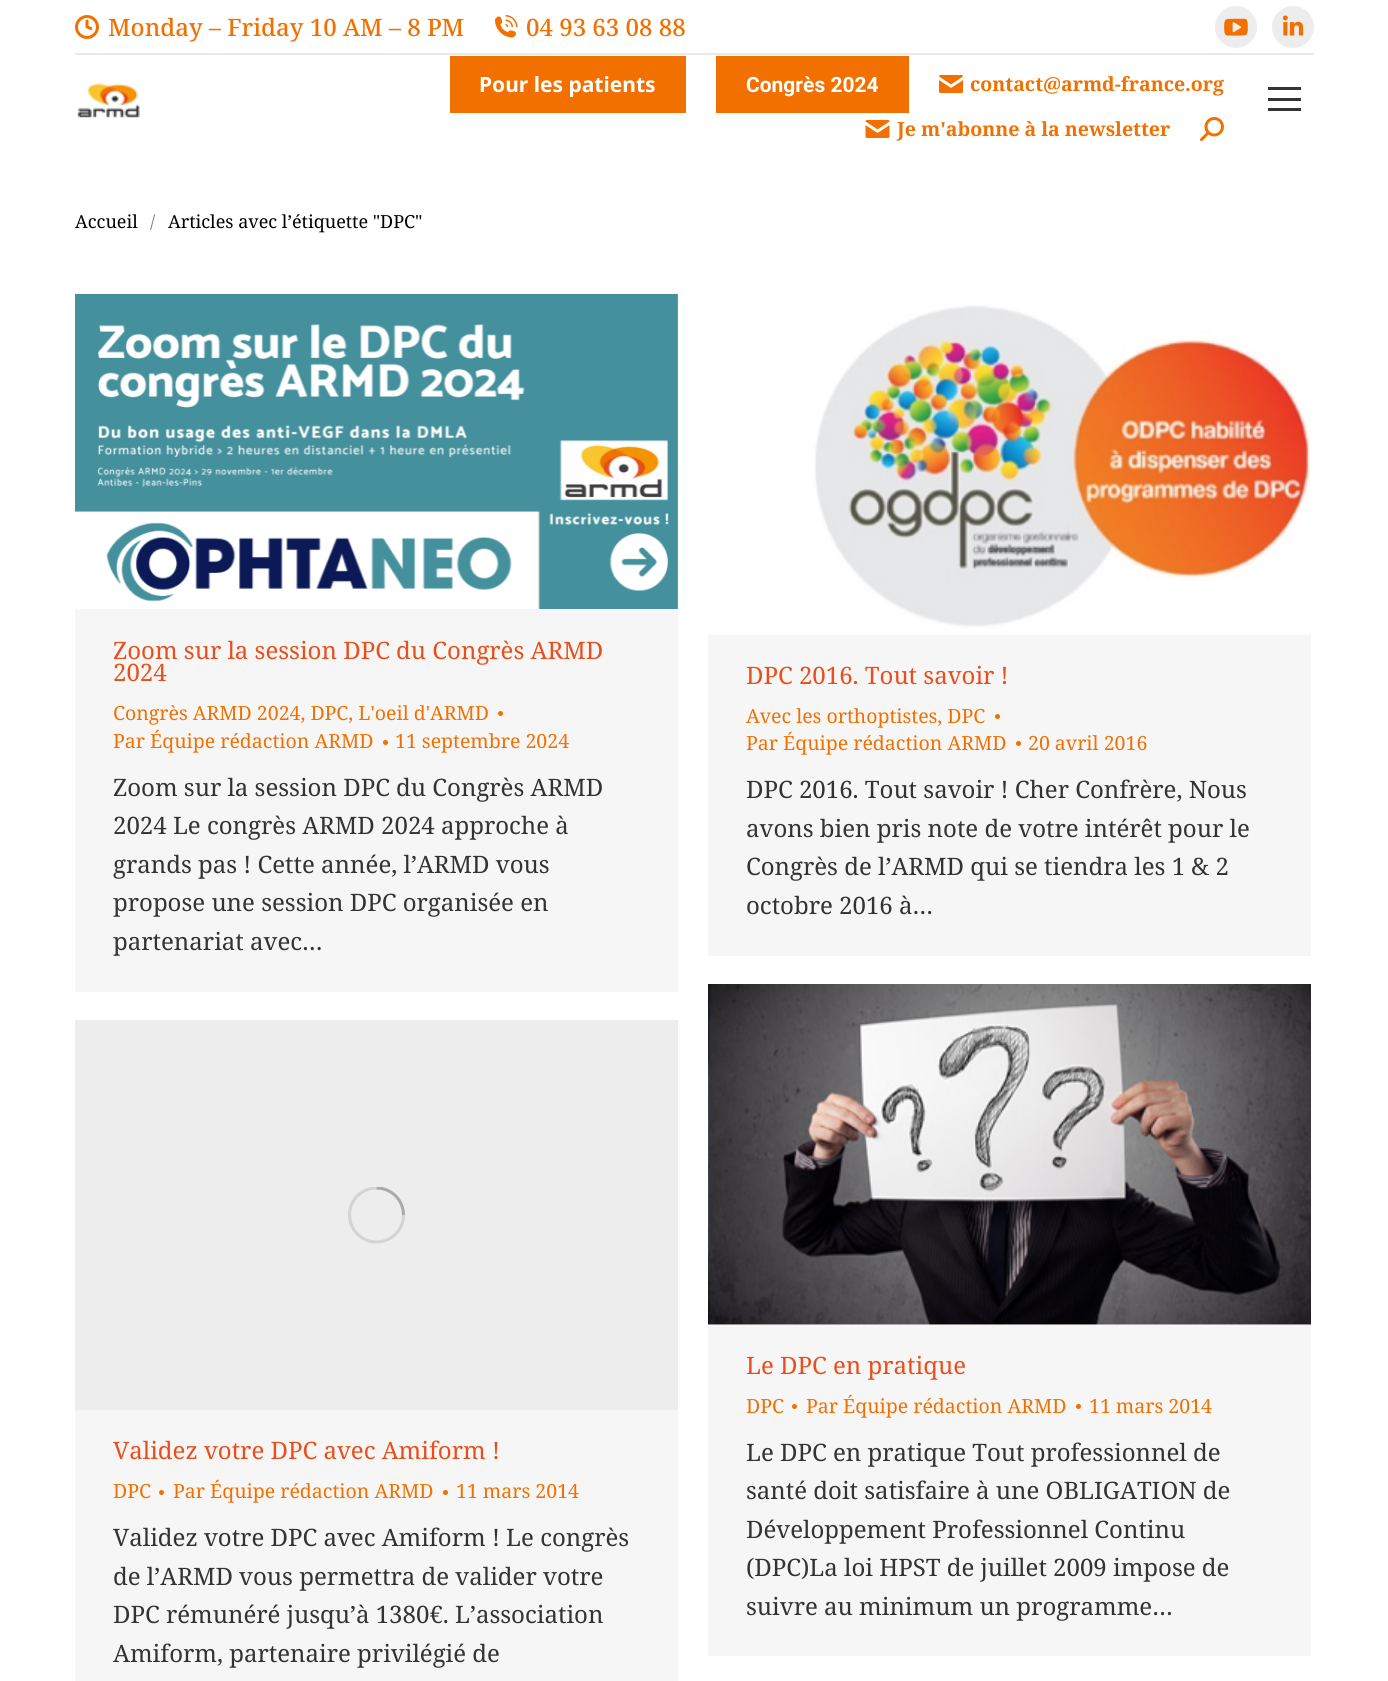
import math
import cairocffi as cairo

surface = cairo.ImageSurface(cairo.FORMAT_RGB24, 1388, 1681)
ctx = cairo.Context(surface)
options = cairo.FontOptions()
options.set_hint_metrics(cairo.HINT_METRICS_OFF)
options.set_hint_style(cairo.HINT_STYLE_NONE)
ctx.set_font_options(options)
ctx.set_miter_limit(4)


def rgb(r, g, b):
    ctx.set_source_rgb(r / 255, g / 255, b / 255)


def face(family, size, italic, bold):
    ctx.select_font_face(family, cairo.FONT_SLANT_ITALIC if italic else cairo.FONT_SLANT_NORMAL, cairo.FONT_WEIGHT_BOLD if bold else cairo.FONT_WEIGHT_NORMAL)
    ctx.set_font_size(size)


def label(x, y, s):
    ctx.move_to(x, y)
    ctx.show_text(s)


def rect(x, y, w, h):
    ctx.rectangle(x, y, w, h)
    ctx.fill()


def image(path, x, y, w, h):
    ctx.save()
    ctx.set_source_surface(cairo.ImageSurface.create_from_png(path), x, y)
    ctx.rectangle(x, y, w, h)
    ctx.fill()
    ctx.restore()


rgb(255, 255, 255)
ctx.paint()
image('image0.png', 75, 15, 24, 24)
face('Noto Serif Medium', 24, 0, 0)
rgb(241, 112, 0)
label(108, 36, 'Monday – Friday 10 AM – 8 PM')
image('image1.png', 495, 15, 23, 23)
label(526, 36, '04 93 63 08 88')
rgb(237, 237, 237)
ctx.new_path()
ctx.arc(1236, 27, 21, 0, 2 * math.pi)
ctx.fill()
image('image2.png', 1224, 18, 24, 18)
ctx.arc(1293, 27, 21, 0, 2 * math.pi)
ctx.fill()
image('image3.png', 1282, 15, 22, 21)
rgb(233, 233, 233)
rect(75, 53, 1239, 2)
image('image4.png', 77, 83, 63, 35)
rgb(241, 112, 0)
rect(450, 56, 236, 57)
face('Noto Sans', 21, 0, 1)
rgb(255, 255, 255)
label(479, 92, 'Pour les patients')
rgb(241, 112, 0)
rect(716, 56, 193, 57)
face('Roboto', 21, 0, 1)
rgb(255, 255, 255)
label(746, 92, 'Congrès 2024')
image('image5.png', 939, 75, 24, 18)
face('Noto Serif', 19.5, 0, 1)
rgb(241, 112, 0)
label(970, 91, 'contact@armd-france.org')
image('image6.png', 865, 120, 25, 18)
label(897, 136, 'Je m\'abonne à la newsletter')
image('image7.png', 1200, 117, 24, 24)
rgb(51, 51, 51)
rect(1268, 87, 33, 3)
rect(1268, 98, 33, 3)
rect(1268, 108, 33, 3)
face('Noto Serif', 18, 0, 0)
rgb(0, 0, 0)
label(75, 228, 'Accueil')
rgb(128, 128, 128)
label(150, 228, '/')
rgb(0, 0, 0)
label(168, 228, 'Articles avec l’étiquette "DPC"')
rgb(246, 246, 246)
rect(75, 294, 603, 698)
image('image8.png', 75, 294, 603, 315)
face('Noto Serif', 24, 0, 0)
rgb(233, 78, 27)
label(113, 659, 'Zoom sur la session DPC du Congrès ARMD')
label(113, 681, '2024')
face('Noto Serif', 19.5, 0, 0)
rgb(241, 112, 0)
label(113, 720, 'Congrès ARMD 2024, DPC, L\'oeil d\'ARMD')
ctx.new_path()
ctx.arc(500.5, 713.5, 2.5, 0, 2 * math.pi)
ctx.fill()
label(113, 748, 'Par Équipe rédaction ARMD')
ctx.new_path()
ctx.arc(385.5, 742.5, 2.5, 0, 2 * math.pi)
ctx.fill()
label(395, 748, '11 septembre 2024')
face('Noto Serif', 24, 0, 0)
rgb(51, 51, 51)
label(113, 796, 'Zoom sur la session DPC du Congrès ARMD')
label(113, 834, '2024 Le congrès ARMD 2024 approche à')
label(113, 873, 'grands pas ! Cette année, l’ARMD vous')
label(113, 911, 'propose une session DPC organisée en')
label(113, 950, 'partenariat avec…')
rgb(246, 246, 246)
rect(708, 634, 603, 322)
image('image9.png', 708, 294, 603, 341)
rgb(233, 78, 27)
label(746, 684, 'DPC 2016. Tout savoir !')
face('Noto Serif', 19.5, 0, 0)
rgb(241, 112, 0)
label(746, 723, 'Avec les orthoptistes, DPC')
ctx.new_path()
ctx.arc(997.5, 716.5, 2.5, 0, 2 * math.pi)
ctx.fill()
label(746, 750, 'Par Équipe rédaction ARMD')
ctx.new_path()
ctx.arc(1018.5, 743.5, 2.5, 0, 2 * math.pi)
ctx.fill()
label(1028, 750, '20 avril 2016')
face('Noto Serif', 24, 0, 0)
rgb(51, 51, 51)
label(746, 798, 'DPC 2016. Tout savoir ! Cher Confrère, Nous')
label(746, 837, 'avons bien pris note de votre intérêt pour le')
label(746, 875, 'Congrès de l’ARMD qui se tiendra les 1 & 2')
label(746, 914, 'octobre 2016 à…')
rgb(246, 246, 246)
rect(75, 1410, 603, 271)
rgb(237, 237, 237)
rect(75, 1020, 603, 390)
ctx.save()
ctx.rectangle(348, 1187, 57, 57)
ctx.clip()
ctx.arc(376.5, 1215, 27, 0, 2 * math.pi)
rgb(211, 211, 211)
ctx.set_line_width(3)
ctx.stroke()
ctx.new_path()
ctx.move_to(403.5, 1215)
ctx.curve_to(403.5, 1200, 391.5, 1188, 376.5, 1188)
ctx.set_source_rgba(0.2, 0.2, 0.2, 0.25)
ctx.stroke()
ctx.restore()
rgb(233, 78, 27)
label(113, 1459, 'Validez votre DPC avec Amiform !')
face('Noto Serif', 19.5, 0, 0)
rgb(241, 112, 0)
label(113, 1498, 'DPC')
ctx.new_path()
ctx.arc(161.5, 1492.5, 2.5, 0, 2 * math.pi)
ctx.fill()
label(173, 1498, 'Par Équipe rédaction ARMD')
ctx.new_path()
ctx.arc(445.5, 1492.5, 2.5, 0, 2 * math.pi)
ctx.fill()
label(456, 1498, '11 mars 2014')
face('Noto Serif', 24, 0, 0)
rgb(51, 51, 51)
label(113, 1546, 'Validez votre DPC avec Amiform ! Le congrès')
label(113, 1585, 'de l’ARMD vous permettra de valider votre')
label(113, 1623, 'DPC rémunéré jusqu’à 1380€. L’association')
label(113, 1662, 'Amiform, partenaire privilégié de')
rgb(246, 246, 246)
rect(708, 1324, 603, 332)
image('image10.png', 708, 984, 603, 341)
rgb(233, 78, 27)
label(746, 1374, 'Le DPC en pratique')
face('Noto Serif', 19.5, 0, 0)
rgb(241, 112, 0)
label(746, 1413, 'DPC')
ctx.new_path()
ctx.arc(794.5, 1406.5, 2.5, 0, 2 * math.pi)
ctx.fill()
label(806, 1413, 'Par Équipe rédaction ARMD')
ctx.new_path()
ctx.arc(1078.5, 1406.5, 2.5, 0, 2 * math.pi)
ctx.fill()
label(1089, 1413, '11 mars 2014')
face('Noto Serif', 24, 0, 0)
rgb(51, 51, 51)
label(746, 1461, 'Le DPC en pratique Tout professionnel de')
label(746, 1499, 'santé doit satisfaire à une OBLIGATION de')
label(746, 1538, 'Développement Professionnel Continu')
label(746, 1576, '(DPC)La loi HPST de juillet 2009 impose de')
label(746, 1615, 'suivre au minimum un programme…')
surface.write_to_png('render.png')
